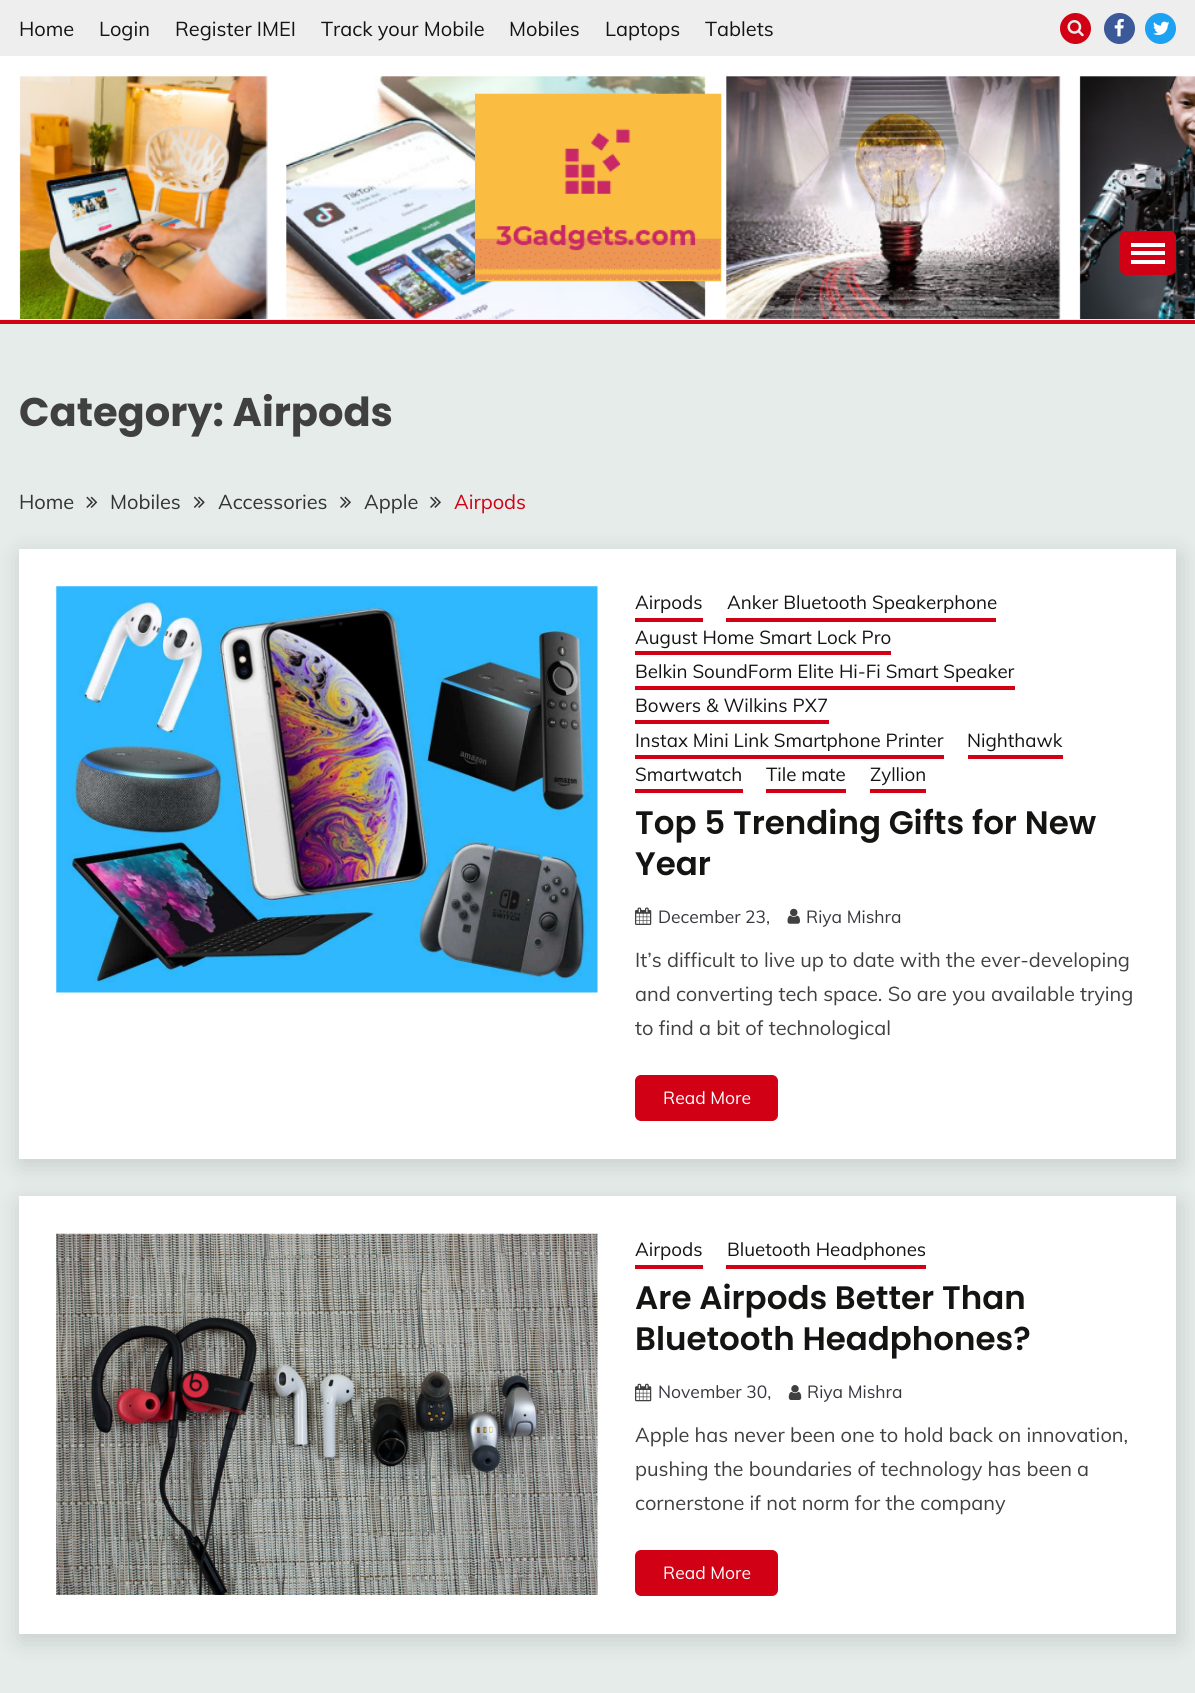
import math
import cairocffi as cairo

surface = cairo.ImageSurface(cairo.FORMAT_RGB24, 1195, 1693)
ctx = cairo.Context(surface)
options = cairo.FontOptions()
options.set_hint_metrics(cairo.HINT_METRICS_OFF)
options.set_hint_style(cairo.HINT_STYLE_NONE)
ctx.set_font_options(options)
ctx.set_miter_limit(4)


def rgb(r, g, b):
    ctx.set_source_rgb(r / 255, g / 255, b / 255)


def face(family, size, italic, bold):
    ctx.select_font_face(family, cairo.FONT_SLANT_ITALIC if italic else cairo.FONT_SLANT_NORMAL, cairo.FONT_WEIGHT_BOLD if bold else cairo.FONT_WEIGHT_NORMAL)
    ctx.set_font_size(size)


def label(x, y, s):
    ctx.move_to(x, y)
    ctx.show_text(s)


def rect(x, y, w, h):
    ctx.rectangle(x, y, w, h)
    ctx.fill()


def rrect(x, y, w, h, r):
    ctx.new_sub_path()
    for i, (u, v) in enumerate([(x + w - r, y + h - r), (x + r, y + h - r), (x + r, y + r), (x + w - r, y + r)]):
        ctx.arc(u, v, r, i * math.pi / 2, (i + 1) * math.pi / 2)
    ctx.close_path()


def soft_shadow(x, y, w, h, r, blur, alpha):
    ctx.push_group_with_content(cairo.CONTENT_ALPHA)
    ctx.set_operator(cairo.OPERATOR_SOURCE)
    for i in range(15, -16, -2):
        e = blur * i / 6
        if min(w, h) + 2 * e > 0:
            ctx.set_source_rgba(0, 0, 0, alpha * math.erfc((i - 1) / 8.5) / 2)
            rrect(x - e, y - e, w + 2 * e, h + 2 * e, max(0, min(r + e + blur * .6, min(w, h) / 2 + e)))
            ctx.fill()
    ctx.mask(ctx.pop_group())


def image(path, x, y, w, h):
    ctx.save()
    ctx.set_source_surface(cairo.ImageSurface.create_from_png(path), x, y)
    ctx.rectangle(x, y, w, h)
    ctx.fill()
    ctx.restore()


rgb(229, 236, 233)
ctx.paint()
rgb(255, 255, 255)
rect(0, 56, 1195, 263)
rgb(238, 238, 238)
rect(0, 0, 1195, 56)
face('Muli', 20, 0, 0)
rgb(20, 20, 19)
label(19, 36, 'Home')
label(99, 36, 'Login')
label(175, 36, 'Register IMEI')
label(321, 36, 'Track your Mobile')
label(509, 36, 'Mobiles')
label(605, 36, 'Laptops')
label(705, 36, 'Tablets')
rgb(209, 0, 20)
ctx.new_path()
ctx.arc(1075.5, 28.5, 15.5, 0, 2 * math.pi)
ctx.fill()
image('image0.png', 1067, 20, 17, 17)
rgb(59, 89, 152)
ctx.arc(1119.5, 28.5, 15.5, 0, 2 * math.pi)
ctx.fill()
image('image1.png', 1114, 18, 10, 19)
rgb(29, 161, 242)
ctx.arc(1160.5, 28.5, 15.5, 0, 2 * math.pi)
ctx.fill()
image('image2.png', 1153, 21, 17, 14)
image('image3.png', 19, 76, 1176, 243)
rgb(238, 238, 238)
rect(0, 319, 1195, 1)
image('image4.png', 475, 93, 247, 189)
rgb(209, 0, 20)
rrect(1120, 231, 56, 44, 6)
ctx.fill()
rgb(255, 255, 255)
rect(1131, 243, 34, 4)
rect(1131, 251, 34, 4)
rect(1131, 260, 34, 4)
rgb(209, 0, 20)
rect(0, 320, 1195, 4)
face('Poppins', 40, 0, 1)
rgb(64, 64, 64)
label(19, 426, 'Category: Airpods')
face('Muli', 20, 0, 0)
rgb(51, 51, 51)
label(19, 509, 'Home')
image('image5.png', 86, 496, 12, 12)
label(110, 509, 'Mobiles')
image('image6.png', 193, 496, 12, 12)
label(218, 509, 'Accessories')
image('image7.png', 340, 496, 11, 12)
label(364, 509, 'Apple')
image('image7.png', 430, 496, 11, 12)
rgb(209, 0, 20)
label(454, 509, 'Airpods')
rgb(0, 0, 0)
soft_shadow(21, 555, 1158, 610, 0, 12.5, 0.14)
rgb(255, 255, 255)
rect(19, 549, 1157, 610)
image('image8.png', 56, 586, 542, 407)
face('Muli', 18.75, 0, 0)
rgb(20, 20, 19)
label(635, 609, 'Airpods')
rgb(209, 0, 20)
rect(635, 618, 68, 4)
rgb(20, 20, 19)
label(727, 609, 'Anker Bluetooth Speakerphone')
rgb(209, 0, 20)
rect(726, 618, 270, 4)
rgb(20, 20, 19)
label(635, 644, 'August Home Smart Lock Pro')
rgb(209, 0, 20)
rect(635, 651, 256, 4)
rgb(20, 20, 19)
label(635, 678, 'Belkin SoundForm Elite Hi-Fi Smart Speaker')
rgb(209, 0, 20)
rect(635, 686, 380, 4)
rgb(20, 20, 19)
label(635, 712, 'Bowers & Wilkins PX7')
rgb(209, 0, 20)
rect(635, 720, 194, 4)
rgb(20, 20, 19)
label(635, 747, 'Instax Mini Link Smartphone Printer')
rgb(209, 0, 20)
rect(635, 755, 309, 4)
rgb(20, 20, 19)
label(967, 747, 'Nighthawk')
rgb(209, 0, 20)
rect(968, 755, 95, 4)
rgb(20, 20, 19)
label(635, 781, 'Smartwatch')
rgb(209, 0, 20)
rect(635, 789, 108, 4)
rgb(20, 20, 19)
label(766, 781, 'Tile mate')
rgb(209, 0, 20)
rect(766, 789, 80, 4)
rgb(20, 20, 19)
label(870, 781, 'Zyllion')
rgb(209, 0, 20)
rect(870, 789, 56, 4)
face('Poppins SemiBold', 32.5, 0, 0)
rgb(20, 20, 19)
label(635, 834, 'Top 5 Trending Gifts for New')
label(635, 875, 'Year')
image('image9.png', 635, 907, 17, 18)
face('Muli', 17.5, 0, 0)
rgb(55, 55, 63)
label(658, 923, 'December 23,')
image('image10.png', 787, 908, 13, 16)
label(806, 923, 'Riya Mishra')
face('Muli', 20, 0, 0)
rgb(64, 64, 64)
label(635, 967, 'It’s difficult to live up to date with the ever-developing')
label(635, 1001, 'and converting tech space. So are you available trying')
label(635, 1035, 'to find a bit of technological')
rgb(209, 0, 20)
rrect(635, 1075, 143, 46, 6)
ctx.fill()
face('Muli', 17.5, 0, 0)
rgb(255, 255, 255)
label(663, 1104, 'Read More')
rgb(0, 0, 0)
soft_shadow(21, 1203, 1158, 437, 0, 12.5, 0.14)
rgb(255, 255, 255)
rect(19, 1196, 1157, 438)
image('image11.png', 56, 1233, 542, 362)
face('Muli', 18.75, 0, 0)
rgb(20, 20, 19)
label(635, 1256, 'Airpods')
rgb(209, 0, 20)
rect(635, 1265, 68, 4)
rgb(20, 20, 19)
label(727, 1256, 'Bluetooth Headphones')
rgb(209, 0, 20)
rect(726, 1265, 200, 4)
face('Poppins SemiBold', 32.5, 0, 0)
rgb(20, 20, 19)
label(635, 1309, 'Are Airpods Better Than')
label(635, 1350, 'Bluetooth Headphones?')
image('image12.png', 635, 1383, 17, 19)
face('Muli', 17.5, 0, 0)
rgb(55, 55, 63)
label(658, 1398, 'November 30,')
image('image13.png', 788, 1385, 14, 15)
label(807, 1398, 'Riya Mishra')
face('Muli', 20, 0, 0)
rgb(64, 64, 64)
label(635, 1442, 'Apple has never been one to hold back on innovation,')
label(635, 1476, 'pushing the boundaries of technology has been a')
label(635, 1510, 'cornerstone if not norm for the company')
rgb(209, 0, 20)
rrect(635, 1550, 143, 46, 6)
ctx.fill()
face('Muli', 17.5, 0, 0)
rgb(255, 255, 255)
label(663, 1579, 'Read More')
surface.write_to_png('render.png')
